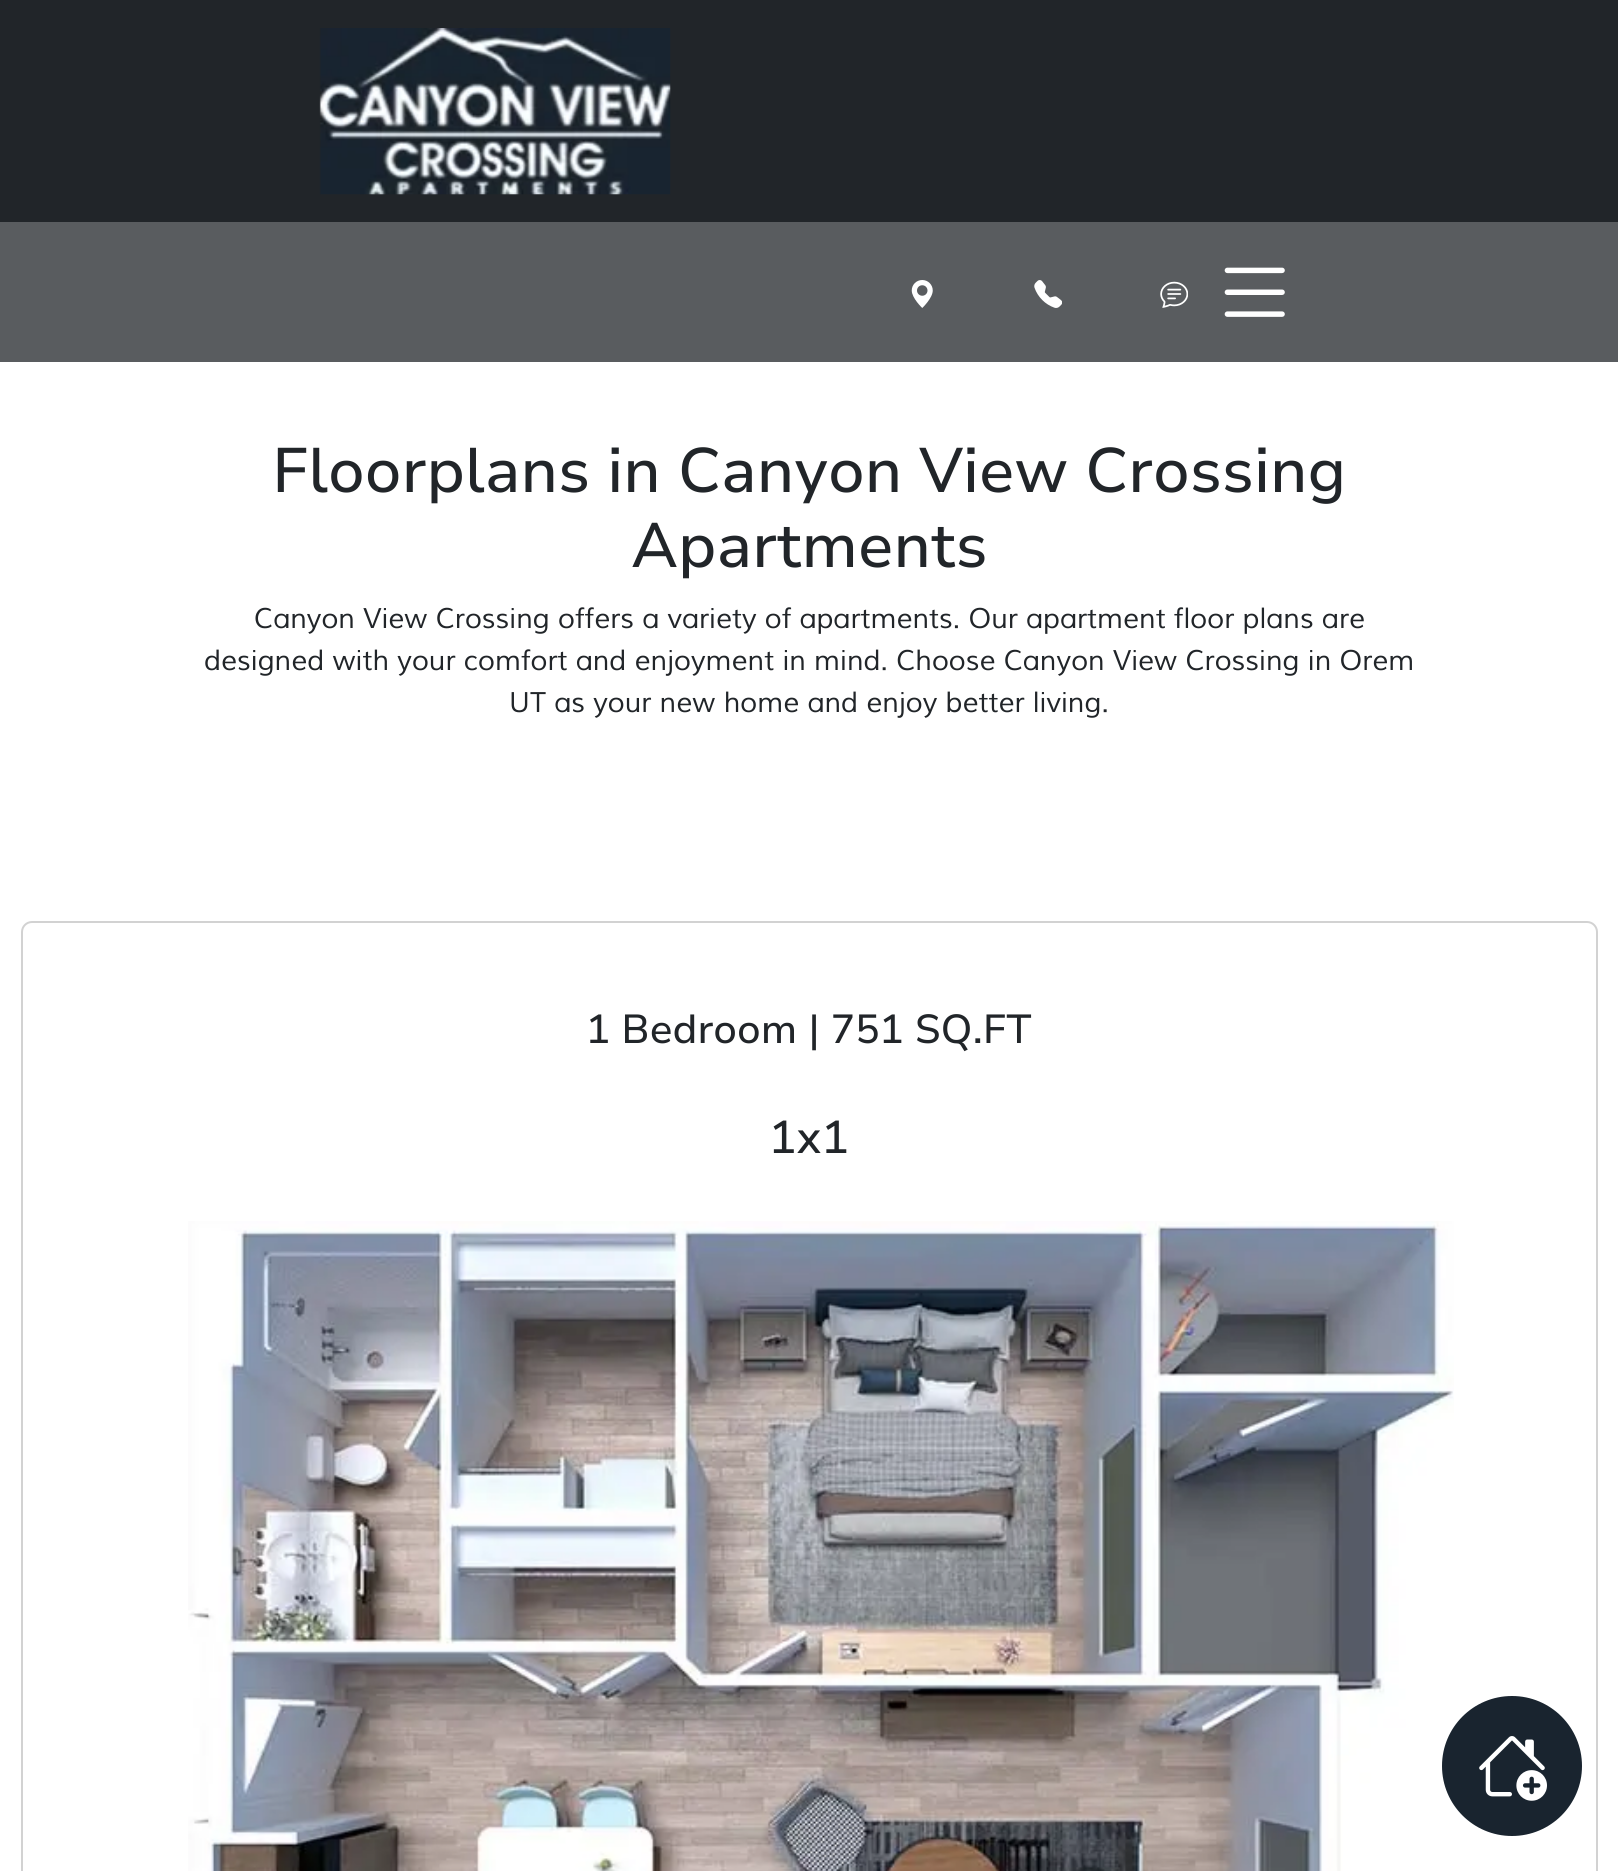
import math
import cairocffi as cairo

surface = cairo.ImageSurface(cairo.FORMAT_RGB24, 1618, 1871)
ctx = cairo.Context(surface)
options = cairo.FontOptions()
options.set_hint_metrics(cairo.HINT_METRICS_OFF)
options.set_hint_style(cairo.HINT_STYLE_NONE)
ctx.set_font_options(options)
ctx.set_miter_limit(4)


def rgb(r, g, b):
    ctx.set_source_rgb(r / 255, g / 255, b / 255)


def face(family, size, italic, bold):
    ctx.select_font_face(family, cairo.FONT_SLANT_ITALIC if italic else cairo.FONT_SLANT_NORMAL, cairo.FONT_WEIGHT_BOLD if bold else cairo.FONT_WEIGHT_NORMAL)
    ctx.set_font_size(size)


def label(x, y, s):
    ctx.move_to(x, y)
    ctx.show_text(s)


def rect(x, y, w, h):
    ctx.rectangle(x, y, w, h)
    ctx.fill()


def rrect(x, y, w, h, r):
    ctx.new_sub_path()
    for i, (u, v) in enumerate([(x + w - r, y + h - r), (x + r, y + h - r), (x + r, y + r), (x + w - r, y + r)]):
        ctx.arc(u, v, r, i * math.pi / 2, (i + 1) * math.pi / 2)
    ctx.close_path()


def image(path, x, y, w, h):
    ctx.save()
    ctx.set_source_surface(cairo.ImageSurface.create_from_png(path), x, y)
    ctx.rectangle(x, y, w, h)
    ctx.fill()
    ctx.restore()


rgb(255, 255, 255)
ctx.paint()
rgb(33, 37, 41)
rect(0, 0, 1618, 222)
image('image0.png', 319, 28, 352, 167)
rgb(89, 92, 95)
rect(0, 222, 1618, 140)
image('image1.png', 911, 280, 22, 28)
image('image2.png', 1034, 280, 28, 28)
image('image3.png', 1160, 281, 28, 27)
image('image4.png', 1224, 267, 61, 50)
face('Nunito Sans Medium', 62.75, 0, 0)
rgb(33, 37, 41)
label(272, 492, 'Floorplans in Canyon View Crossing')
label(631, 567, 'Apartments')
face('Muli', 28, 1, 0)
label(254, 628, 'Canyon View Crossing offers a variety of apartments. Our apartment floor plans are')
label(204, 670, 'designed with your comfort and enjoyment in mind. Choose Canyon View Crossing in Orem')
label(509, 712, 'UT as your new home and enjoy better living.')
rrect(22, 922, 1575, 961, 10)
rgb(210, 210, 210)
ctx.stroke()
face('Nunito Sans Medium', 40.5, 0, 0)
rgb(33, 37, 41)
label(586, 1043, '1 Bedroom | 751 SQ.FT')
face('Nunito Sans Medium', 46, 0, 0)
label(769, 1153, '1x1')
image('image5.png', 188, 1221, 1266, 650)
rgb(25, 36, 47)
ctx.arc(1512, 1766, 71, 0, 2 * math.pi)
ctx.fill_preserve()
rgb(255, 255, 255)
ctx.stroke()
image('image6.png', 1479, 1736, 68, 65)
surface.write_to_png('render.png')
